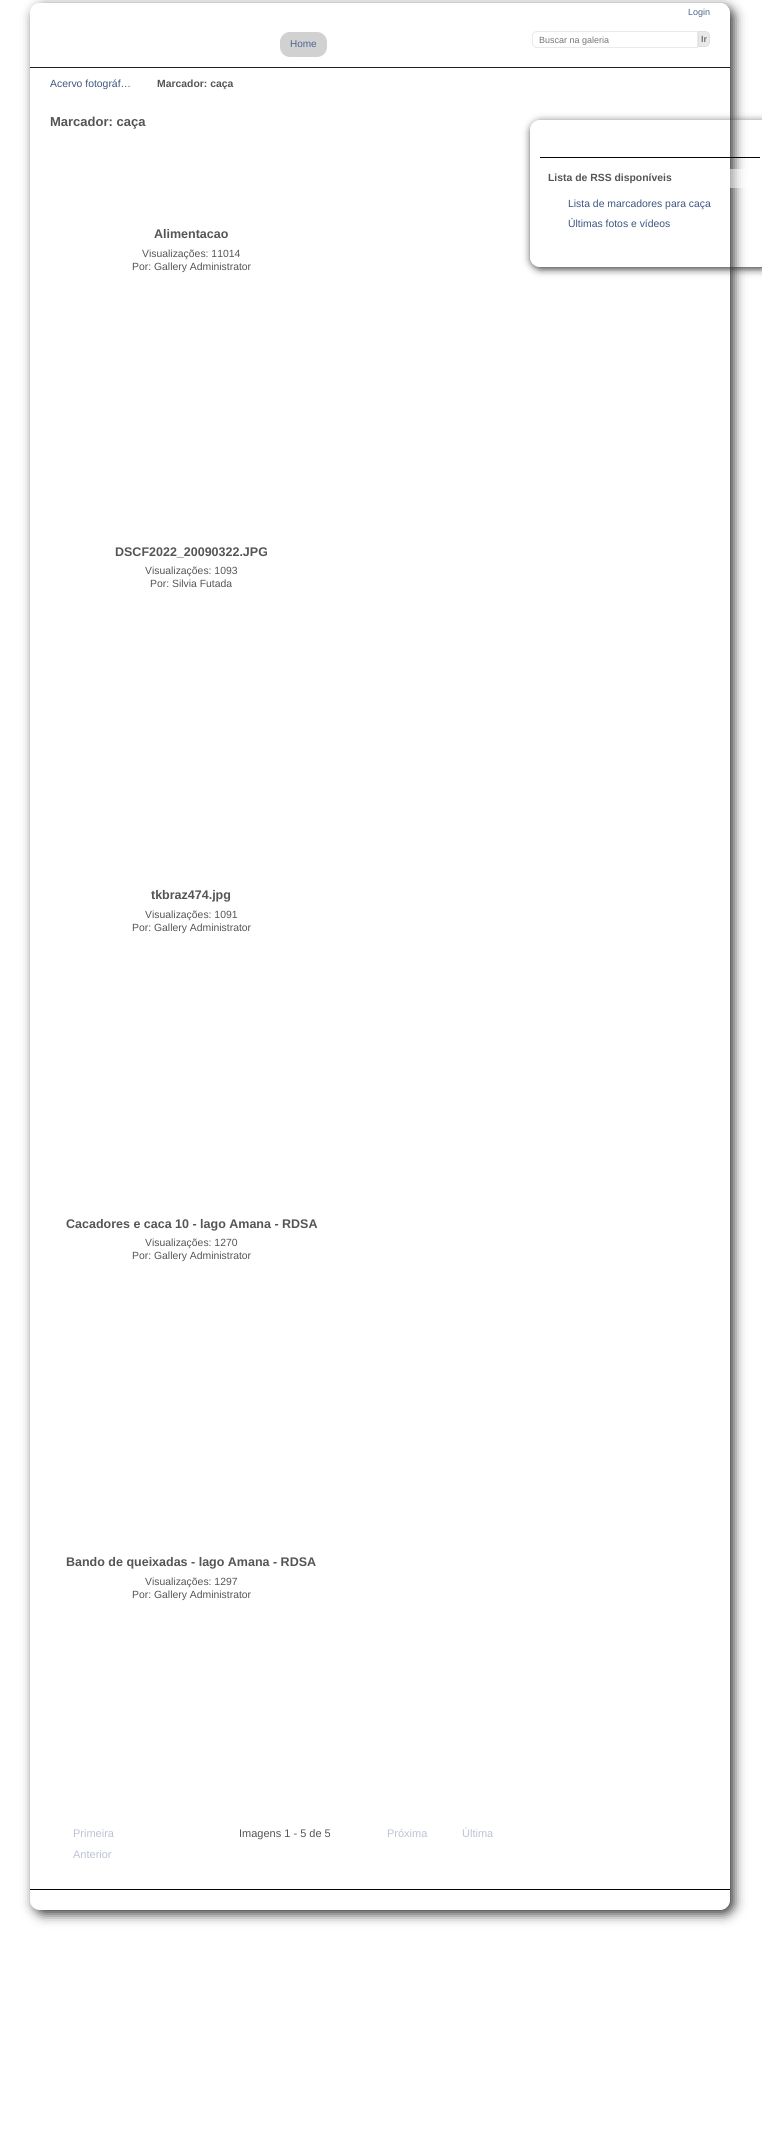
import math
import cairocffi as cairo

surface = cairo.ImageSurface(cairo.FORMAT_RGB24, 762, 2154)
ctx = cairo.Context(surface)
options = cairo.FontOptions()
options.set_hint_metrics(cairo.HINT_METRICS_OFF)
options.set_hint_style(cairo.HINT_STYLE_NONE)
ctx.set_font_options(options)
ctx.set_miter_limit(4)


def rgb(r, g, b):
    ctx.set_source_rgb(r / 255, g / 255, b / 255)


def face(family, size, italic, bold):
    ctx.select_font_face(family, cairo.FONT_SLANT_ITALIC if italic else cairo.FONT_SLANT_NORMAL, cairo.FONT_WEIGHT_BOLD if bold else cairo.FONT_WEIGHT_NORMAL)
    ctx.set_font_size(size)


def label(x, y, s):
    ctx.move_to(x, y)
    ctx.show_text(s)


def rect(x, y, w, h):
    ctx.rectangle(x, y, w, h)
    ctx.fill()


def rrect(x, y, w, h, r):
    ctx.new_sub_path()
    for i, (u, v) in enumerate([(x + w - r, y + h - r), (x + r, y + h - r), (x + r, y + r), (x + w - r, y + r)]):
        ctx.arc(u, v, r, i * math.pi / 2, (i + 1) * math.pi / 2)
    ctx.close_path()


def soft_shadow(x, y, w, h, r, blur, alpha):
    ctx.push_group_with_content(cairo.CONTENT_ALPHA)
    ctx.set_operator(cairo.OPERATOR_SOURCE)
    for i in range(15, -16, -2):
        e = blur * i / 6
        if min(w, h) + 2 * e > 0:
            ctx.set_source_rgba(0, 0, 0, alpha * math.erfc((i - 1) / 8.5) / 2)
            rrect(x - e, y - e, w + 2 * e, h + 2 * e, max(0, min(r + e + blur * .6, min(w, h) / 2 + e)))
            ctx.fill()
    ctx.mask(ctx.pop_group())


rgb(255, 255, 255)
ctx.paint()
ctx.save()
ctx.set_fill_rule(cairo.FILL_RULE_EVEN_ODD)
ctx.new_path()
ctx.move_to(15, 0)
ctx.line_to(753, 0)
ctx.line_to(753, 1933)
ctx.line_to(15, 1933)
ctx.close_path()
ctx.move_to(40, 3)
ctx.line_to(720, 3)
ctx.curve_to(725.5, 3, 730, 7.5, 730, 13)
ctx.line_to(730, 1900)
ctx.curve_to(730, 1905.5, 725.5, 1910, 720, 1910)
ctx.line_to(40, 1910)
ctx.curve_to(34.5, 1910, 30, 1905.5, 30, 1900)
ctx.line_to(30, 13)
ctx.curve_to(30, 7.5, 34.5, 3, 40, 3)
ctx.close_path()
ctx.clip()
rgb(51, 51, 51)
soft_shadow(34, 7, 700, 1907, 10, 6, 1)
ctx.restore()
rgb(30, 30, 30)
rect(30, 67, 700, 1)
face('Liberation Sans', 9, 0, 0)
rgb(80, 102, 141)
label(688, 15, 'Login')
rgb(209, 209, 209)
rrect(280, 32, 47, 25, 10)
ctx.fill()
face('Liberation Sans', 10, 0, 0)
rgb(80, 102, 141)
label(290, 47, 'Home')
ctx.new_path()
ctx.move_to(537, 31.5)
ctx.line_to(697.5, 31.5)
ctx.line_to(697.5, 47.5)
ctx.line_to(537, 47.5)
ctx.curve_to(534.5, 47.5, 532.5, 45.5, 532.5, 43)
ctx.line_to(532.5, 36)
ctx.curve_to(532.5, 33.5, 534.5, 31.5, 537, 31.5)
ctx.close_path()
rgb(234, 234, 234)
ctx.set_line_width(1)
ctx.stroke()
face('Liberation Sans', 9, 0, 0)
rgb(117, 117, 117)
label(539, 43, 'Buscar na galeria')
rgb(233, 233, 233)
ctx.new_path()
ctx.move_to(698.5, 31.5)
ctx.line_to(705, 31.5)
ctx.curve_to(707.5, 31.5, 709.5, 33.5, 709.5, 36)
ctx.line_to(709.5, 42)
ctx.curve_to(709.5, 44.5, 707.5, 46.5, 705, 46.5)
ctx.line_to(698.5, 46.5)
ctx.close_path()
ctx.fill_preserve()
rgb(223, 223, 223)
ctx.stroke()
face('Liberation Sans', 9, 0, 1)
rgb(117, 117, 117)
label(701, 42, 'Ir')
face('Liberation Sans', 10.4, 0, 0)
rgb(60, 85, 128)
label(50, 87, 'Acervo fotográf…')
face('Liberation Sans', 10.4, 0, 1)
rgb(85, 85, 85)
label(157, 87, 'Marcador: caça')
face('Liberation Sans', 13, 0, 1)
label(50, 126, 'Marcador: caça')
face('Liberation Sans', 12.5, 0, 1)
label(154, 238, 'Alimentacao')
face('Liberation Sans', 10.4, 0, 0)
label(142, 257, 'Visualizações: 11014')
label(132, 270, 'Por: Gallery Administrator')
face('Liberation Sans', 12.5, 0, 1)
label(115, 556, 'DSCF2022_20090322.JPG')
face('Liberation Sans', 10.4, 0, 0)
label(145, 574, 'Visualizações: 1093')
label(150, 587, 'Por: Silvia Futada')
face('Liberation Sans', 12.5, 0, 1)
label(151, 899, 'tkbraz474.jpg')
face('Liberation Sans', 10.4, 0, 0)
label(145, 918, 'Visualizações: 1091')
label(132, 931, 'Por: Gallery Administrator')
face('Liberation Sans', 12.5, 0, 1)
label(66, 1228, 'Cacadores e caca 10 - lago Amana - RDSA')
face('Liberation Sans', 10.4, 0, 0)
label(145, 1246, 'Visualizações: 1270')
label(132, 1259, 'Por: Gallery Administrator')
face('Liberation Sans', 12.5, 0, 1)
label(66, 1566, 'Bando de queixadas - lago Amana - RDSA')
face('Liberation Sans', 10.4, 0, 0)
label(145, 1585, 'Visualizações: 1297')
label(132, 1598, 'Por: Gallery Administrator')
face('Liberation Sans', 11, 0, 0)
rgb(187, 196, 211)
label(73, 1837, 'Primeira')
label(73, 1858, 'Anterior')
rgb(85, 85, 85)
label(239, 1837, 'Imagens 1 - 5 de 5')
rgb(187, 196, 211)
label(387, 1837, 'Próxima')
label(462, 1837, 'Última')
ctx.save()
ctx.set_fill_rule(cairo.FILL_RULE_EVEN_ODD)
ctx.new_path()
ctx.move_to(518, 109)
ctx.line_to(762, 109)
ctx.line_to(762, 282)
ctx.line_to(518, 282)
ctx.close_path()
ctx.move_to(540, 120)
ctx.line_to(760, 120)
ctx.curve_to(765.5, 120, 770, 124.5, 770, 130)
ctx.line_to(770, 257)
ctx.curve_to(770, 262.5, 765.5, 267, 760, 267)
ctx.line_to(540, 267)
ctx.curve_to(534.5, 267, 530, 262.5, 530, 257)
ctx.line_to(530, 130)
ctx.curve_to(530, 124.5, 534.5, 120, 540, 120)
ctx.close_path()
ctx.clip()
rgb(51, 51, 51)
soft_shadow(531, 122, 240, 147, 10, 4, 1)
ctx.restore()
rgb(5, 5, 5)
rect(540, 157, 220, 1)
ctx.set_source_rgba(1, 1, 1, 0.5)
rrect(540, 169, 220, 19, 5)
ctx.fill()
face('Liberation Sans', 10.4, 0, 1)
rgb(85, 85, 85)
label(548, 181, 'Lista de RSS disponíveis')
face('Liberation Sans', 10.4, 0, 0)
rgb(60, 85, 128)
label(568, 207, 'Lista de marcadores para caça')
label(568, 227, 'Últimas fotos e vídeos')
rgb(5, 5, 5)
rect(30, 1889, 700, 1)
surface.write_to_png('render.png')
